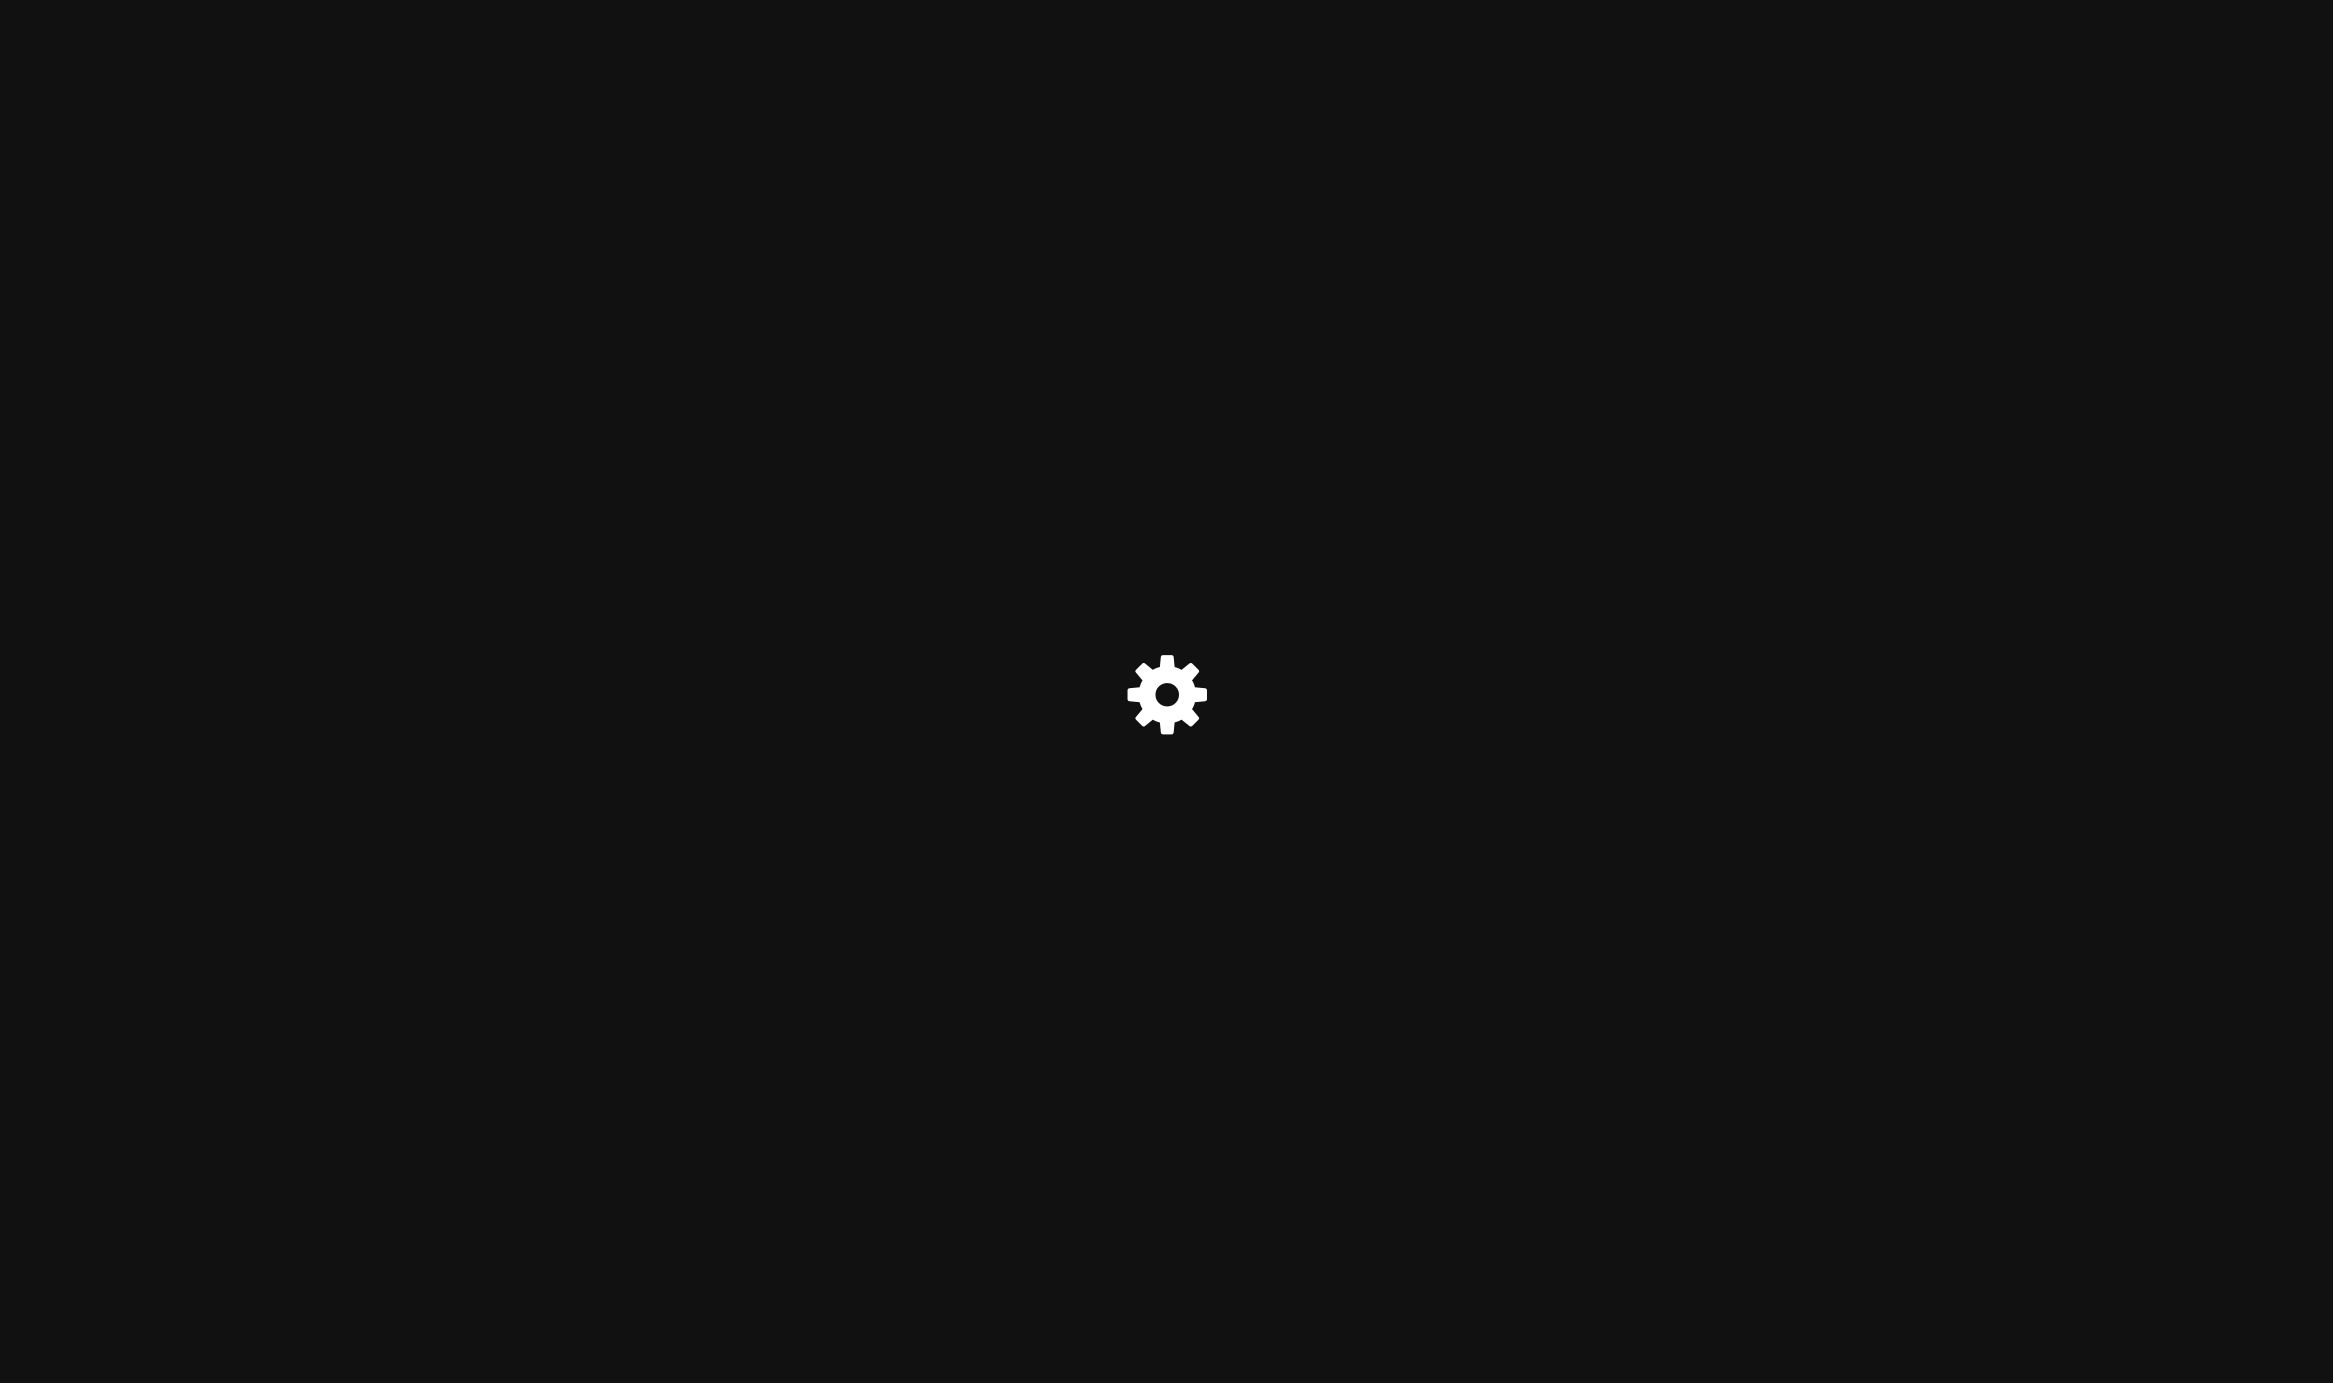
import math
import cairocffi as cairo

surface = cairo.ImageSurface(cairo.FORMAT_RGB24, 2333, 1383)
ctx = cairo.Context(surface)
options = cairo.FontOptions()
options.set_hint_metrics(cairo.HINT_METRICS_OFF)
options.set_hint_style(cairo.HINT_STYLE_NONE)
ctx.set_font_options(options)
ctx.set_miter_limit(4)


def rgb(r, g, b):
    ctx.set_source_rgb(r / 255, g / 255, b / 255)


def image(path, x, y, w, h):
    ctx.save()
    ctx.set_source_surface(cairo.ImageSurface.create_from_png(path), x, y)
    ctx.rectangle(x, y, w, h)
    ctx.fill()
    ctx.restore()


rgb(17, 17, 17)
ctx.paint()
image('image0.png', 1127, 655, 80, 80)
surface.write_to_png('render.png')
